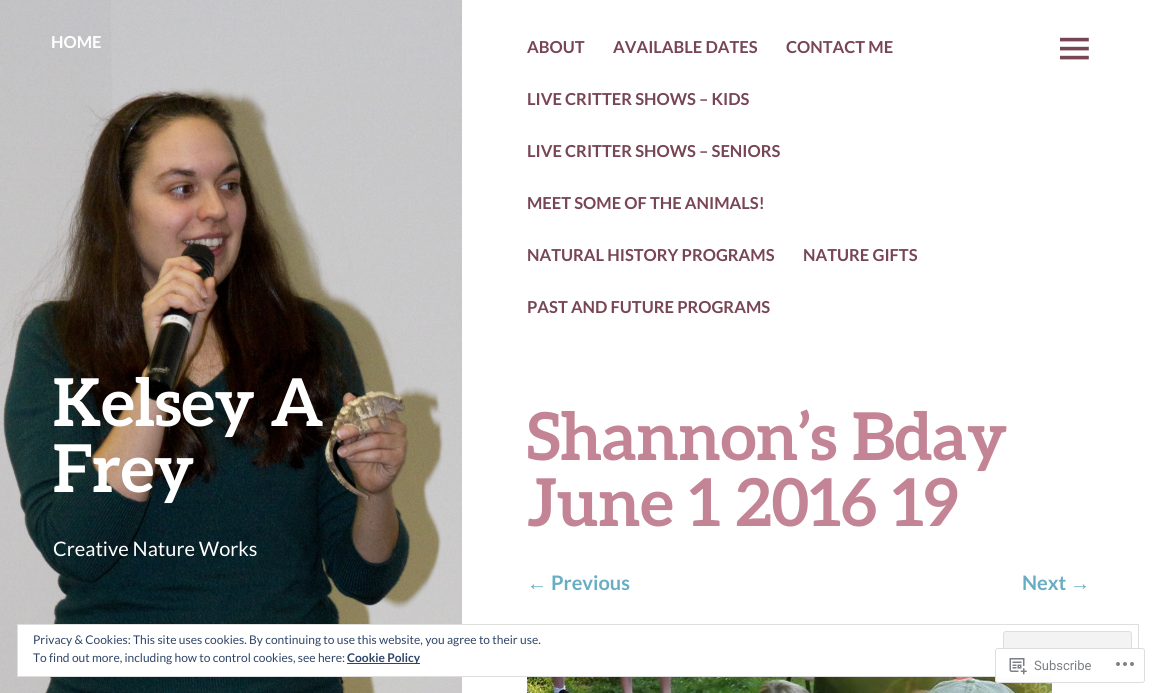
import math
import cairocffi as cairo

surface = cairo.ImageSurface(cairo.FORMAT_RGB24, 1155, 693)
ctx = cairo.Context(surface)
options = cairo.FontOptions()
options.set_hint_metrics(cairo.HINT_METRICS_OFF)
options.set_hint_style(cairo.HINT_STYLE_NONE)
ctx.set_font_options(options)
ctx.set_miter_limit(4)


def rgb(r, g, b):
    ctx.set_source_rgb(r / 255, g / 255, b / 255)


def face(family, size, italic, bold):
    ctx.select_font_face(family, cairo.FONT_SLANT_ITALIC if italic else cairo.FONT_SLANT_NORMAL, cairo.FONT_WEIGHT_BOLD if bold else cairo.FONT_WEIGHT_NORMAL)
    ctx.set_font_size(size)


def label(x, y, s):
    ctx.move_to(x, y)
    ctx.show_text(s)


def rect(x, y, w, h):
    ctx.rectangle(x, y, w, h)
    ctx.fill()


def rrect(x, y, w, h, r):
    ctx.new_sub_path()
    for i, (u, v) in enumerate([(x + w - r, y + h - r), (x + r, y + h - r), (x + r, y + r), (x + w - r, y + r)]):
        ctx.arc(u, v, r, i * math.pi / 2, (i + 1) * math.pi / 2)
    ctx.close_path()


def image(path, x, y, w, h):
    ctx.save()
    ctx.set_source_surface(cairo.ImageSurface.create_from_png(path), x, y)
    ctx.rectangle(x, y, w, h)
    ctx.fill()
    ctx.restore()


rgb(255, 255, 255)
ctx.paint()
image('image2.png', 0, 0, 462, 693)
face('Lato', 16.5, 0, 1)
rgb(255, 255, 255)
label(51, 48, 'HOME')
rgb(119, 69, 83)
label(527, 53, 'ABOUT')
label(613, 53, 'AVAILABLE DATES')
label(786, 53, 'CONTACT ME')
label(527, 105, 'LIVE CRITTER SHOWS – KIDS')
label(527, 157, 'LIVE CRITTER SHOWS – SENIORS')
label(527, 209, 'MEET SOME OF THE ANIMALS!')
label(527, 261, 'NATURAL HISTORY PROGRAMS')
label(803, 261, 'NATURE GIFTS')
label(527, 313, 'PAST AND FUTURE PROGRAMS')
image('image0.png', 1060, 37, 29, 23)
face('Aleo', 66, 0, 1)
rgb(195, 133, 150)
label(527, 460, 'Shannon’s Bday')
label(527, 526, 'June 1 2016 19')
face('Liberation Sans', 20, 0, 1)
rgb(104, 173, 195)
label(527, 590, '←')
face('Lato', 20, 0, 1)
label(551, 590, 'Previous')
label(1022, 590, 'Next')
face('Liberation Sans', 20, 0, 1)
label(1070, 590, '→')
image('image1.png', 527, 677, 525, 16)
face('Aleo', 66, 0, 1)
rgb(255, 255, 255)
label(53, 426, 'Kelsey A')
label(53, 492, 'Frey')
face('Lato', 20, 0, 0)
label(53, 556, 'Creative Nature Works')
rect(18, 625, 444, 51)
ctx.rectangle(17.5, 624.5, 1121, 52)
rgb(222, 222, 222)
ctx.set_line_width(1)
ctx.stroke()
face('Lato', 12, 0, 0)
rgb(46, 68, 103)
label(33, 644, 'Privacy & Cookies: This site uses cookies. By continuing to use this website, you agree to their use.')
rgb(243, 243, 243)
rrect(1003.5, 631.5, 128, 38, 2.5)
ctx.fill_preserve()
rgb(222, 222, 222)
ctx.stroke()
rgb(46, 68, 103)
label(33, 662, 'To find out more, including how to control cookies, see here:')
rect(347, 663, 73, 1)
face('Lato', 12, 0, 1)
label(347, 662, 'Cookie Policy')
ctx.set_source_rgba(1, 1, 1, 0.98)
rrect(995, 648, 150, 35, 3)
ctx.fill()
rrect(995.5, 648.5, 149, 34, 2.5)
ctx.set_source_rgba(0.863, 0.863, 0.871, 0.98)
ctx.stroke()
image('image3.png', 1009, 658, 18, 17)
face('Roboto', 13, 0, 0)
rgb(123, 127, 132)
label(1034, 670, 'Subscribe')
image('image4.png', 1116, 662, 18, 4)
surface.write_to_png('render.png')
